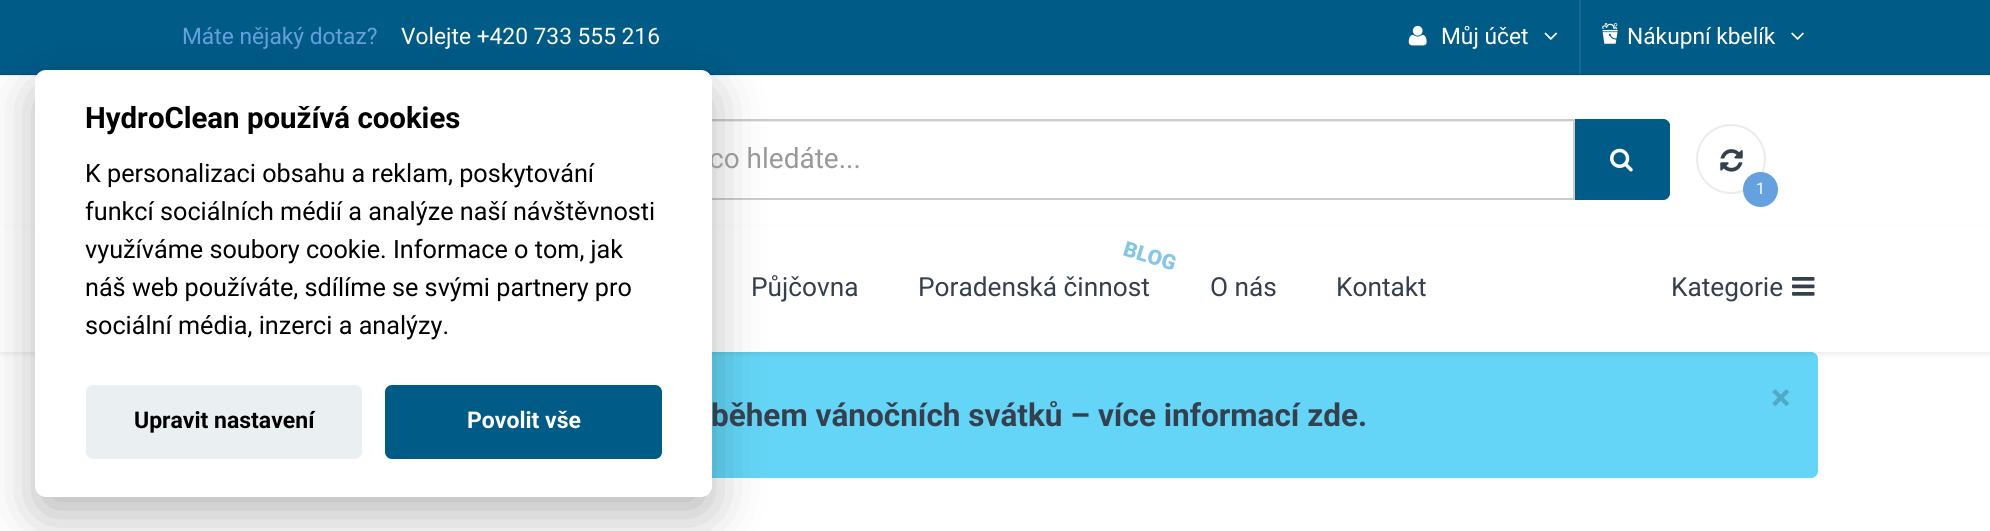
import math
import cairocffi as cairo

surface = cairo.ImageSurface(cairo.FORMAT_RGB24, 1990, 531)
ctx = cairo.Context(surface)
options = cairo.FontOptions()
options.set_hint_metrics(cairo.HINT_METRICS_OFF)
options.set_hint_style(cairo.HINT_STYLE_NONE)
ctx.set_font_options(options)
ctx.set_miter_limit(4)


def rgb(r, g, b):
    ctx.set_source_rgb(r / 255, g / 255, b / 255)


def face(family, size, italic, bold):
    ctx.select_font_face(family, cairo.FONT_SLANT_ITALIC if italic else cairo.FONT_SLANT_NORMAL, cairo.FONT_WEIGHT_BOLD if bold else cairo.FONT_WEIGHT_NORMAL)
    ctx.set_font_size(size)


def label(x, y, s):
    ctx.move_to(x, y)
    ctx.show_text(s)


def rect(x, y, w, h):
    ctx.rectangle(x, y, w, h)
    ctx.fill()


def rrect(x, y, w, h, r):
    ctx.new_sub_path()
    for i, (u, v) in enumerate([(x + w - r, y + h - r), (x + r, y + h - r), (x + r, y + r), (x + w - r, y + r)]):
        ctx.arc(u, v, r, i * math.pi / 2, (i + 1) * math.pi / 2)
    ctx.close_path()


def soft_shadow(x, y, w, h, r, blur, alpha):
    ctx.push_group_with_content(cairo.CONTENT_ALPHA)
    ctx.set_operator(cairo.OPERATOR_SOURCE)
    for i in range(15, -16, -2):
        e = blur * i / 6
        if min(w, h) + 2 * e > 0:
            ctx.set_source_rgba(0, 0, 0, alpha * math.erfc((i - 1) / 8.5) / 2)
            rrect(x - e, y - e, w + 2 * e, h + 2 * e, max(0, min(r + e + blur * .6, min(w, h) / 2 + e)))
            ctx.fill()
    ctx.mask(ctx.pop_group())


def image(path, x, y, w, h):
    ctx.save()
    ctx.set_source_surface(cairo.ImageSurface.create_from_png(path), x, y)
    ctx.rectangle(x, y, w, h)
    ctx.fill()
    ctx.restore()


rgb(255, 255, 255)
ctx.paint()
rgb(235, 235, 235)
rect(0, 75, 1990, 1)
rgb(0, 91, 135)
rect(0, 0, 1990, 74)
rgb(0, 84, 124)
rect(0, 74, 1990, 1)
face('Roboto', 22.75, 0, 0)
rgb(101, 161, 222)
label(182, 44, 'Máte nějaký dotaz?')
rgb(255, 255, 255)
label(401, 44, 'Volejte +420 733 555 216')
rgb(20, 104, 145)
rect(1579, 0, 2, 74)
image('image0.png', 1408, 25, 19, 21)
rgb(255, 255, 255)
label(1441, 44, 'Můj účet')
image('image1.png', 1544, 32, 14, 8)
image('image2.png', 1602, 23, 16, 21)
label(1627, 44, 'Nákupní kbelík')
image('image3.png', 1791, 32, 13, 8)
rgb(236, 236, 236)
ctx.new_path()
ctx.move_to(586, 122)
ctx.line_to(1573, 122)
ctx.line_to(1573, 121)
ctx.line_to(587, 121)
ctx.curve_to(581, 121, 578, 126, 578, 131)
ctx.curve_to(578, 126, 581, 122, 586, 122)
ctx.close_path()
ctx.fill()
ctx.rectangle(577, 120, 997, 79)
rgb(204, 204, 204)
ctx.stroke()
rgb(100, 213, 246)
rrect(173, 352, 1645, 126, 7)
ctx.fill()
rgb(0, 0, 0)
soft_shadow(0, 228, 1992, 126, 0, 2.5, 0.08)
rgb(255, 255, 255)
rect(0, 226, 1990, 126)
rgb(2, 2, 3)
soft_shadow(35, 88, 677, 427, 11, 26, 0.28)
face('Roboto', 28, 0, 0)
rgb(153, 153, 153)
label(709, 168, 'co hledáte...')
rgb(255, 255, 255)
rrect(35, 70, 677, 427, 11)
ctx.fill()
face('Roboto', 29.4, 0, 1)
rgb(0, 0, 0)
label(85, 128, 'HydroClean používá cookies')
face('Roboto', 25.2, 0, 0)
label(85, 182, 'K personalizaci obsahu a reklam, poskytování')
label(85, 220, 'funkcí sociálních médií a analýze naší návštěvnosti')
label(85, 258, 'využíváme soubory cookie. Informace o tom, jak')
label(85, 296, 'náš web používáte, sdílíme se svými partnery pro')
label(85, 334, 'sociální média, inzerci a analýzy.')
rgb(234, 239, 242)
rrect(86, 385, 276, 74, 7)
ctx.fill()
face('Roboto', 23, 0, 1)
rgb(0, 0, 0)
label(134, 428, 'Upravit nastavení')
rgb(0, 91, 135)
rrect(385, 385, 277, 74, 7)
ctx.fill()
rgb(255, 255, 255)
label(467, 428, 'Povolit vše')
rgb(0, 91, 135)
ctx.new_path()
ctx.move_to(1575, 119)
ctx.line_to(1663, 119)
ctx.curve_to(1667, 119, 1670, 122, 1670, 126)
ctx.line_to(1670, 193)
ctx.curve_to(1670, 197, 1667, 200, 1663, 200)
ctx.line_to(1575, 200)
ctx.close_path()
ctx.fill()
ctx.set_fill_rule(cairo.FILL_RULE_EVEN_ODD)
ctx.new_path()
ctx.move_to(1575, 119)
ctx.line_to(1662, 119)
ctx.curve_to(1666, 119, 1670, 122, 1670, 126)
ctx.line_to(1670, 192)
ctx.curve_to(1670, 196, 1666, 200, 1662, 200)
ctx.line_to(1575, 200)
ctx.close_path()
ctx.move_to(1575, 121)
ctx.line_to(1662, 121)
ctx.curve_to(1665, 121, 1668, 123, 1668, 126)
ctx.line_to(1668, 192)
ctx.curve_to(1668, 195, 1665, 198, 1662, 198)
ctx.line_to(1575, 198)
ctx.close_path()
ctx.fill()
image('image4.png', 1610, 148, 23, 24)
ctx.arc(1731, 159, 34, 0, 2 * math.pi)
rgb(235, 235, 235)
ctx.stroke()
image('image5.png', 1720, 149, 23, 23)
rgb(101, 161, 222)
ctx.arc(1760.5, 189.5, 17.5, 0, 2 * math.pi)
ctx.fill()
face('Roboto', 16, 0, 0)
rgb(255, 255, 255)
label(1756, 194, '1')
face('Roboto', 26.25, 0, 0)
rgb(53, 64, 79)
label(751, 296, 'Půjčovna')
face('Roboto Black', 21, 0, 0)
rgb(134, 198, 230)
ctx.save()
ctx.translate(1122, 255)
ctx.rotate(17 * math.pi / 180)
label(0, 0, 'BLOG')
ctx.restore()
face('Roboto', 26.25, 0, 0)
rgb(53, 64, 79)
label(918, 296, 'Poradenská činnost')
label(1210, 296, 'O nás')
label(1336, 296, 'Kontakt')
label(1671, 296, 'Kategorie')
image('image6.png', 1792, 277, 23, 19)
face('Roboto', 37, 0, 1)
rgb(80, 170, 197)
label(1771, 410, '×')
face('Roboto', 31.5, 0, 1)
rgb(53, 64, 79)
label(711, 426, 'během vánočních svátků – více informací zde.')
surface.write_to_png('render.png')
